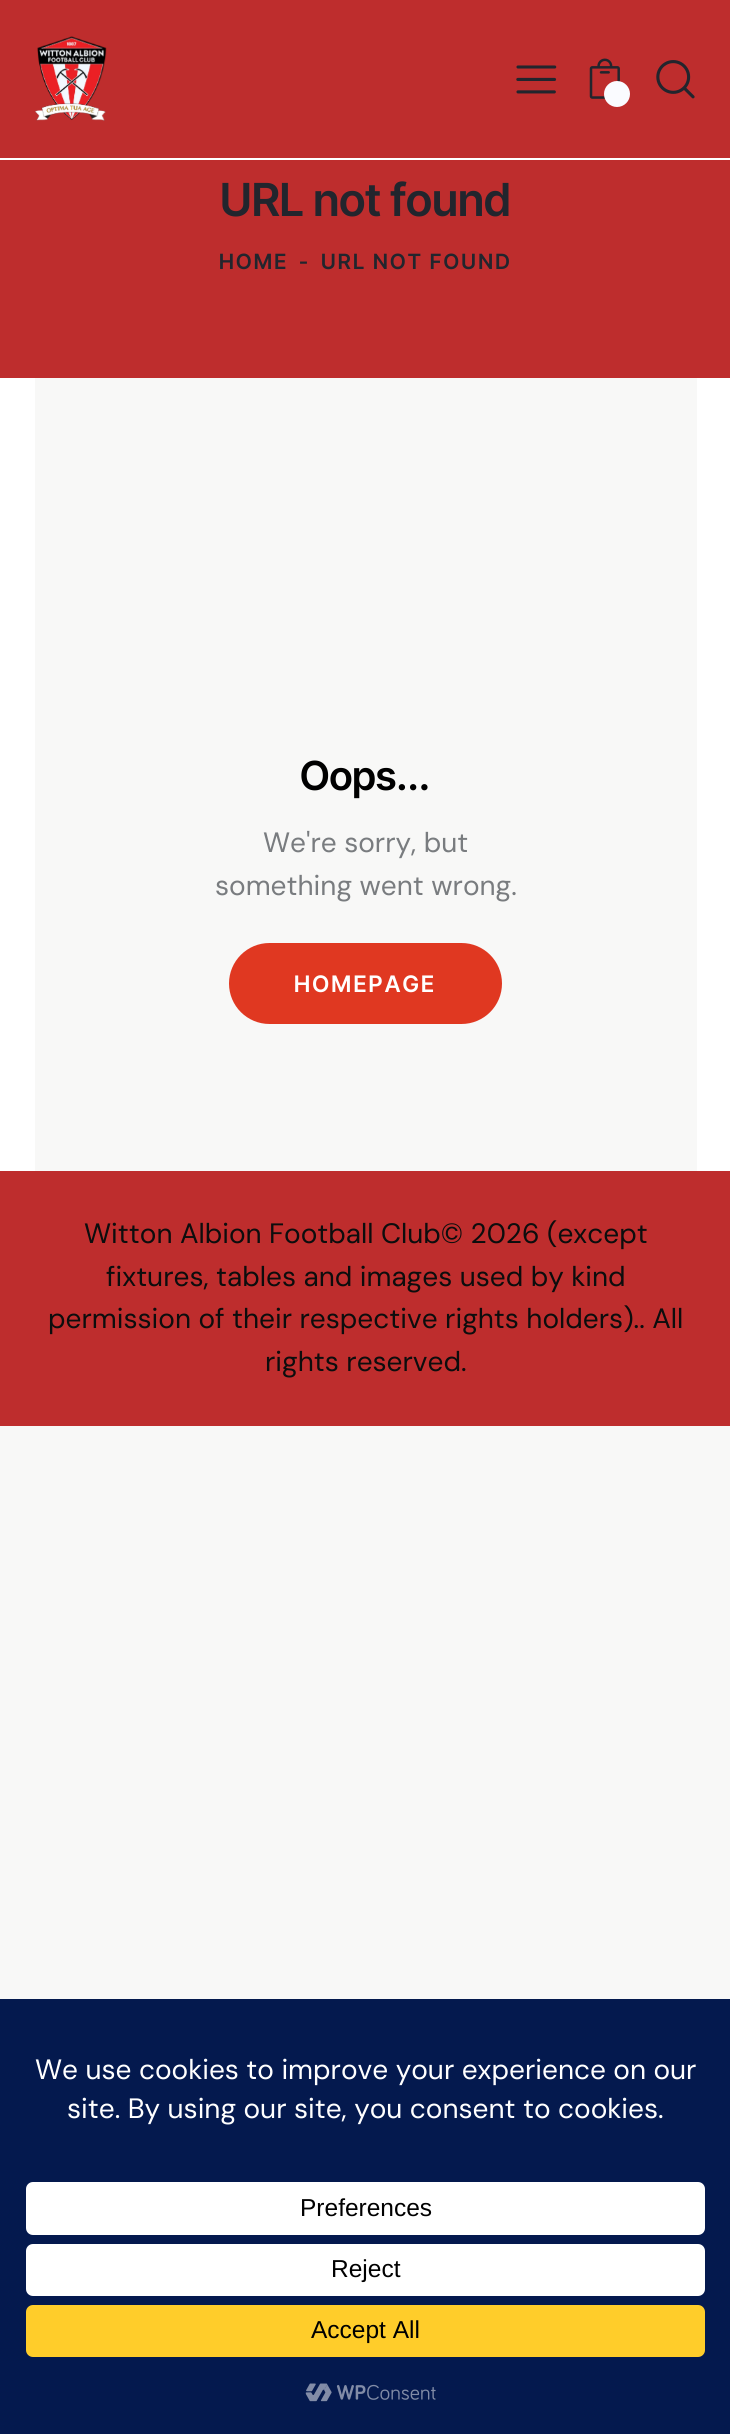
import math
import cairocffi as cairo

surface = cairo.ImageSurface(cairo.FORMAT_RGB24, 730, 2434)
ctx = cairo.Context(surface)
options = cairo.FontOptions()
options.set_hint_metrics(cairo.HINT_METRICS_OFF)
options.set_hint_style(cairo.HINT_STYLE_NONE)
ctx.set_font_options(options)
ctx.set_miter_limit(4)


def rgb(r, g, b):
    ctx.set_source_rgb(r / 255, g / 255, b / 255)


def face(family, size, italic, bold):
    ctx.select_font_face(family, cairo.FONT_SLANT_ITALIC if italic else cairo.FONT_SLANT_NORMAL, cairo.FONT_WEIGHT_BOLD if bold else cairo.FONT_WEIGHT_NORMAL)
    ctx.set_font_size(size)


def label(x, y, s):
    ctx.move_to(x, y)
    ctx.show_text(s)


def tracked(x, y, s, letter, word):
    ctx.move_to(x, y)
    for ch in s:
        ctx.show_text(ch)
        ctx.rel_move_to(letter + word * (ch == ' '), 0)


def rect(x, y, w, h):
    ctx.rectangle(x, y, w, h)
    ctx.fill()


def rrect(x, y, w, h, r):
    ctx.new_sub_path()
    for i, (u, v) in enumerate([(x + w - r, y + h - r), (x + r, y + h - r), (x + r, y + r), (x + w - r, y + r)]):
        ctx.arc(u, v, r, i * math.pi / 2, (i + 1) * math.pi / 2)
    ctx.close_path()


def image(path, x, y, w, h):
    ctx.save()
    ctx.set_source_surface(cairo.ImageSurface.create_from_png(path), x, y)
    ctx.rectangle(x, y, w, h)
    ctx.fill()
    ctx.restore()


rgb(248, 248, 247)
ctx.paint()
rgb(190, 45, 45)
rect(0, 0, 730, 378)
rgb(255, 255, 255)
rect(0, 158, 730, 2)
image('image0.png', 35, 36, 72, 85)
image('image1.png', 516, 65, 41, 29)
image('image2.png', 589, 58, 31, 41)
rgb(250, 251, 255)
ctx.arc(617, 94, 13, 0, 2 * math.pi)
ctx.fill()
image('image3.png', 656, 60, 39, 39)
face('Inter Tight SemiBold', 45.5, 0, 0)
rgb(34, 37, 45)
label(220, 216, 'URL not found')
face('Inter Tight SemiBold', 21, 0, 0)
tracked(219, 269, 'HOME', 2.25, 0)
tracked(299, 269, '-', 2.25, 0)
tracked(321, 269, 'URL NOT FOUND', 2.25, 0)
rgb(255, 255, 255)
rect(0, 378, 730, 793)
rgb(248, 248, 247)
rect(35, 378, 662, 793)
face('Inter Tight SemiBold', 40, 0, 0)
rgb(0, 0, 0)
label(300, 790, 'Oops...')
face('DM Sans', 28, 0, 0)
rgb(121, 124, 127)
label(263, 852, 'We\'re sorry, but')
label(215, 895, 'something went wrong.')
rgb(224, 56, 33)
rrect(229, 943, 273, 81, 40.5)
ctx.fill()
face('Inter Tight SemiBold', 22.75, 0, 0)
rgb(255, 255, 255)
tracked(294, 992, 'HOMEPAGE', 2.25, 0)
rgb(190, 45, 45)
rect(0, 1171, 730, 255)
face('DM Sans', 28, 0, 0)
rgb(12, 13, 13)
label(84, 1243, 'Witton Albion Football Club© 2026 (except')
label(106, 1286, 'fixtures, tables and images used by kind')
label(48, 1328, 'permission of their respective rights holders).. All')
label(265, 1371, 'rights reserved.')
rgb(4, 25, 78)
rect(0, 1999, 730, 435)
rgb(255, 255, 255)
label(35, 2079, 'We use cookies to improve your experience on our')
label(67, 2118, 'site. By using our site, you consent to cookies.')
rrect(26, 2182, 679, 53, 7)
ctx.fill()
face('Liberation Sans', 24.5, 0, 0)
rgb(0, 0, 0)
label(300, 2216, 'Preferences')
rgb(255, 255, 255)
rrect(26, 2244, 679, 52, 7)
ctx.fill()
rgb(0, 0, 0)
label(331, 2277, 'Reject')
rgb(255, 205, 42)
rrect(26, 2305, 679, 52, 7)
ctx.fill()
rgb(0, 0, 0)
label(311, 2338, 'Accept All')
image('image4.png', 305, 2383, 131, 19)
surface.write_to_png('render.png')
